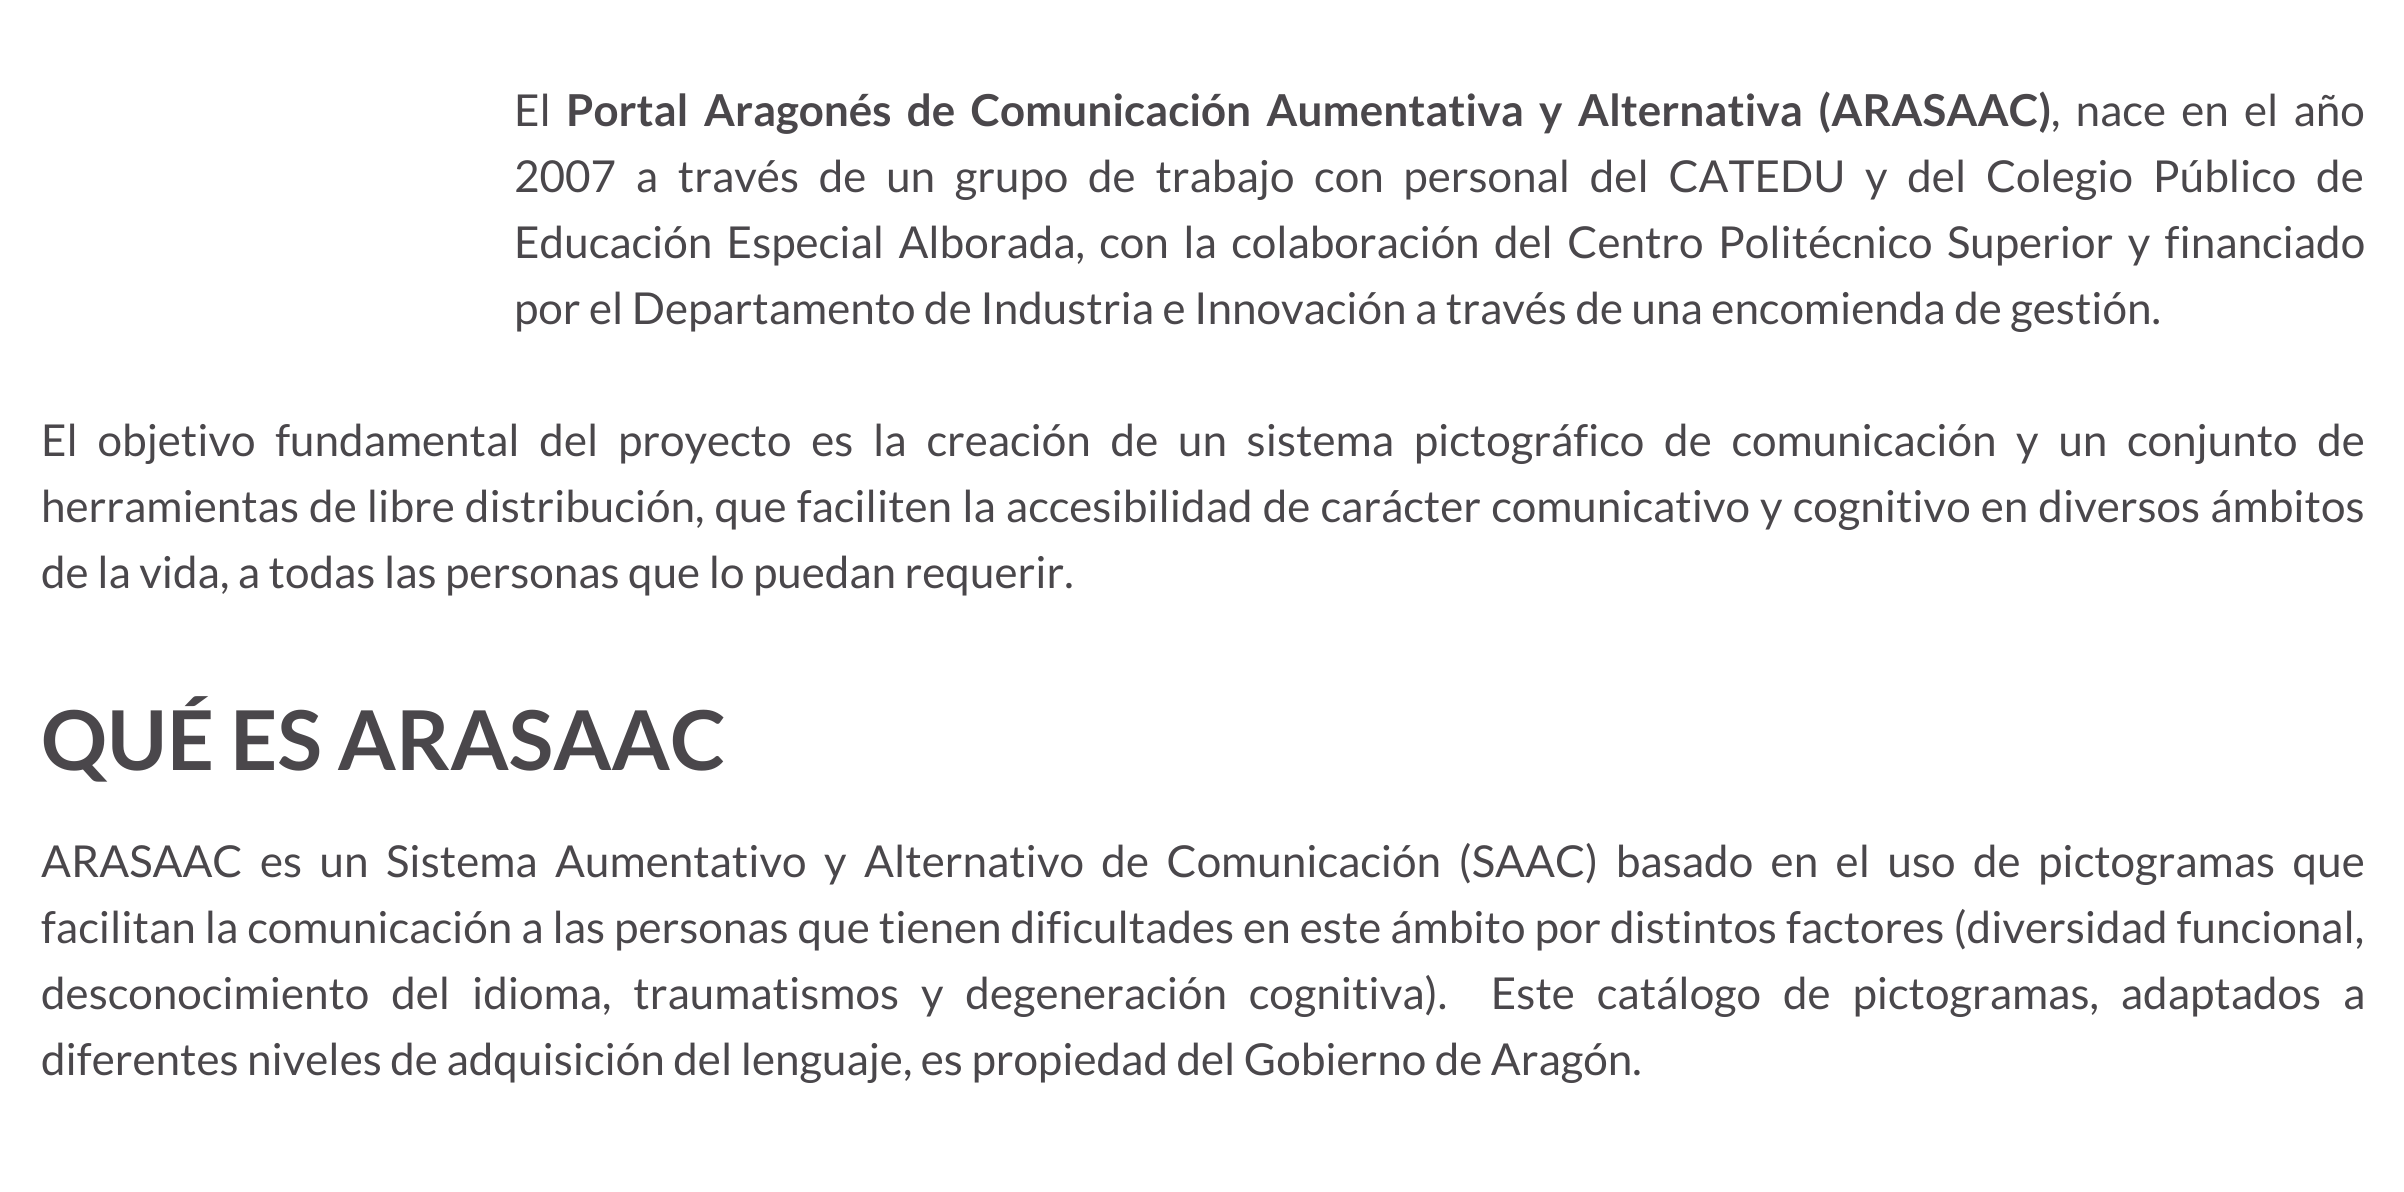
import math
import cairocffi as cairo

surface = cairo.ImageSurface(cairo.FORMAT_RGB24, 2404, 1192)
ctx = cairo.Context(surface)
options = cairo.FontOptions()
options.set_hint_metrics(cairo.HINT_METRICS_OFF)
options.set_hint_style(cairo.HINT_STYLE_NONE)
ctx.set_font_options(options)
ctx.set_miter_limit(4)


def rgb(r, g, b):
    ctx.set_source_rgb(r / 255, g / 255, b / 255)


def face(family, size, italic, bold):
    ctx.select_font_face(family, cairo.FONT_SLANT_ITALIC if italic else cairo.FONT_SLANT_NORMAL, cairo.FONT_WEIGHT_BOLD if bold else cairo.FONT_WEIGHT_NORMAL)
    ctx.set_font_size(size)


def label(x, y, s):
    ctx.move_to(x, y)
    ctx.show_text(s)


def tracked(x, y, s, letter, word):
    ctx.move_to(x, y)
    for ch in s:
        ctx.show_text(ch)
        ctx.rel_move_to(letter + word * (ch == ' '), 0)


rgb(255, 255, 255)
ctx.paint()
face('Lato', 44, 0, 0)
rgb(74, 71, 75)
label(514, 126, 'El')
face('Lato', 44, 0, 1)
tracked(566, 126, 'Portal Aragonés de Comunicación Aumentativa y Alternativa (ARASAAC)', 0, 6.75)
face('Lato', 44, 0, 0)
tracked(2051, 126, ', nace en el año', 0, 6.75)
tracked(514, 192, '2007 a través de un grupo de trabajo con personal del CATEDU y del Colegio Público de', 0, 11.25)
tracked(514, 258, 'Educación Especial Alborada, con la colaboración del Centro Politécnico Superior y financiado', 0, 5.9)
label(514, 324, 'por el Departamento de Industria e Innovación a través de una encomienda de gestión.')
tracked(41, 456, 'El objetivo fundamental del proyecto es la creación de un sistema pictográfico de comunicación y un conjunto de', 0, 11.25)
tracked(41, 522, 'herramientas de libre distribución, que faciliten la accesibilidad de carácter comunicativo y cognitivo en diversos ámbitos', 0, 1.6)
label(41, 588, 'de la vida, a todas las personas que lo puedan requerir.')
face('Lato', 82.5, 0, 1)
label(41, 770, 'QUÉ ES ARASAAC')
face('Lato', 44, 0, 0)
tracked(41, 877, 'ARASAAC es un Sistema Aumentativo y Alternativo de Comunicación (SAAC) basado en el uso de pictogramas que', 0, 9)
tracked(41, 943, 'facilitan la comunicación a las personas que tienen dificultades en este ámbito por distintos factores (diversidad funcional,', 0, 0.5)
tracked(41, 1009, 'desconocimiento del idioma, traumatismos y degeneración cognitiva).  Este catálogo de pictogramas, adaptados a', 0, 13.4)
label(41, 1075, 'diferentes niveles de adquisición del lenguaje, es propiedad del Gobierno de Aragón.')
surface.write_to_png('render.png')
